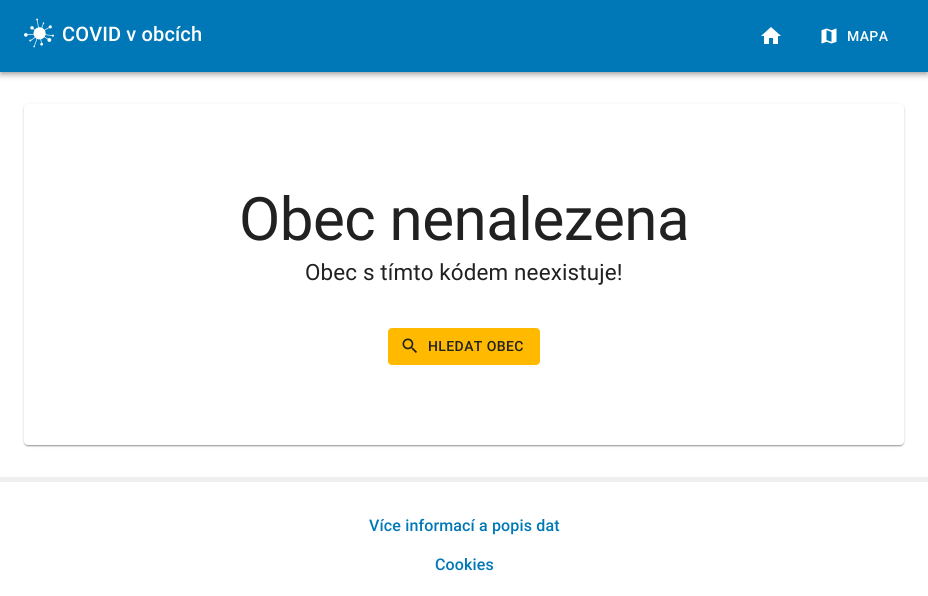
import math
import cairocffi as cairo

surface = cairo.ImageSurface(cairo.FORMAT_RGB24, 928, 596)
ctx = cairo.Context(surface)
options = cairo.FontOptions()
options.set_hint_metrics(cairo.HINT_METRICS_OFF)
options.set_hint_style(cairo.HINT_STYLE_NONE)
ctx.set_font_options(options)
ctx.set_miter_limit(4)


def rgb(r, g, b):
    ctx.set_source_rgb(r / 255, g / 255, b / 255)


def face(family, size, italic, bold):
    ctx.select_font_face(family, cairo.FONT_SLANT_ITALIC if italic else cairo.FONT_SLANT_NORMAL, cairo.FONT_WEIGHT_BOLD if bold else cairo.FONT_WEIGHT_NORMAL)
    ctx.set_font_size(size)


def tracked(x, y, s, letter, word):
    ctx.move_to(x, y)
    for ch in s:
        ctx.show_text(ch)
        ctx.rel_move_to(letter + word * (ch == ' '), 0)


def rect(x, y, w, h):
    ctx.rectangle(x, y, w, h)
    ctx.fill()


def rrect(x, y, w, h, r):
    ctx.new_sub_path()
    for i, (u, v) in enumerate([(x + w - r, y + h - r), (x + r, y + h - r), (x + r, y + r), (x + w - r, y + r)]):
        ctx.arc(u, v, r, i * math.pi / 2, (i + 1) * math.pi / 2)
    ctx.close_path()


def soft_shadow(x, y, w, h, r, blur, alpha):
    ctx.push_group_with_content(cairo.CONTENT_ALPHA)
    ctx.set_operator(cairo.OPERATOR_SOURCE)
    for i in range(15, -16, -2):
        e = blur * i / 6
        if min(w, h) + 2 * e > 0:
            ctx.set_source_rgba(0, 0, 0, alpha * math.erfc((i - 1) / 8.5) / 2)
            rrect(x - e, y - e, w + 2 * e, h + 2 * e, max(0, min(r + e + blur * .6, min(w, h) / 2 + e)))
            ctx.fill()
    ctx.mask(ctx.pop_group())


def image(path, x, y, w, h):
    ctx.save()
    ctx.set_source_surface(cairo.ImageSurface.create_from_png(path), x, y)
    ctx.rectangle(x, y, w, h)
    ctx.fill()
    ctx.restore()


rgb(255, 255, 255)
ctx.paint()
rgb(0, 0, 0)
soft_shadow(0, 1, 928, 72, 0, 5, 0.12)
soft_shadow(0, 4, 928, 72, 0, 2.5, 0.14)
soft_shadow(1, 3, 926, 70, 0, 2, 0.2)
rgb(0, 120, 184)
rect(0, 0, 928, 72)
image('image0.png', 24, 18, 30, 30)
face('Roboto Medium', 20, 0, 0)
rgb(255, 255, 255)
tracked(62, 41, 'COVID v obcích', 0.15, 0)
image('image1.png', 761, 27, 20, 17)
image('image2.png', 821, 28, 16, 16)
face('Roboto Medium', 14, 0, 0)
tracked(847, 41, 'MAPA', 0.4, 0)
rgb(0, 0, 0)
soft_shadow(24, 105, 880, 341, 4, 1.5, 0.12)
soft_shadow(24, 105, 880, 341, 4, 0.5, 0.14)
soft_shadow(25, 107, 878, 339, 3, 0.5, 0.2)
rgb(255, 255, 255)
rrect(24, 104, 880, 341, 4)
ctx.fill()
face('Roboto', 60, 0, 0)
rgb(33, 33, 33)
tracked(239, 240, 'Obec nenalezena', -0.5, 0)
face('Roboto', 22.4, 0, 0)
tracked(305, 280, 'Obec s tímto kódem neexistuje!', 0.15, 0)
rgb(255, 186, 0)
rrect(388, 328, 152, 37, 4)
ctx.fill()
image('image3.png', 402, 338, 15, 15)
face('Roboto Medium', 14, 0, 0)
rgb(33, 33, 33)
tracked(428, 351, 'HLEDAT OBEC', 0.4, 0)
rgb(239, 239, 239)
rect(0, 477, 928, 5)
face('Roboto Medium', 16, 0, 0)
rgb(0, 120, 184)
tracked(369, 531, 'Více informací a popis dat', 0.15, 0)
tracked(435, 570, 'Cookies', 0.15, 0)
surface.write_to_png('render.png')
